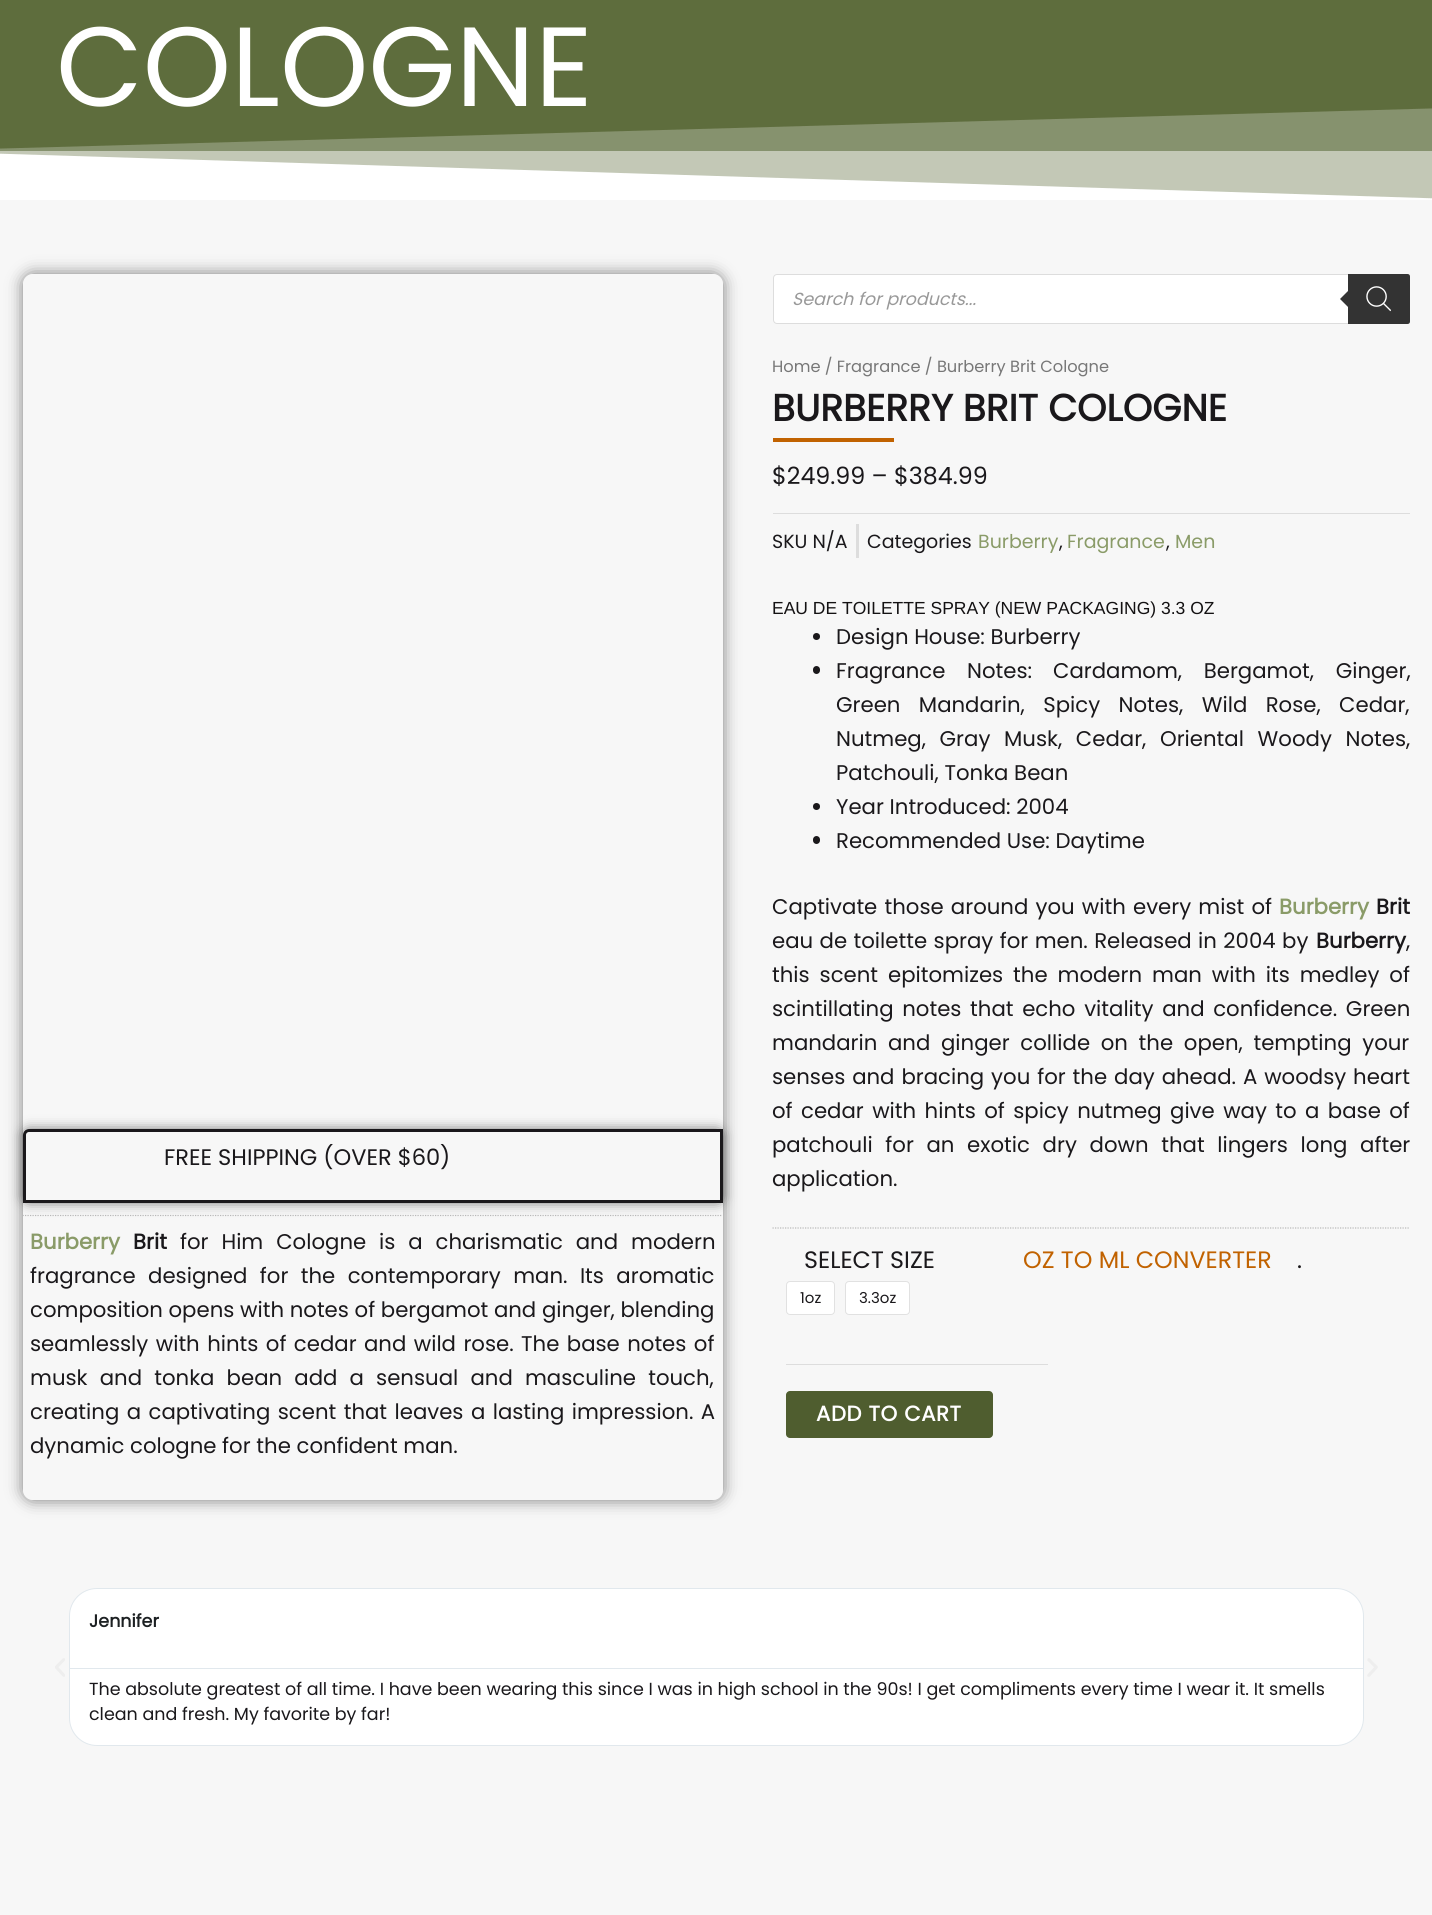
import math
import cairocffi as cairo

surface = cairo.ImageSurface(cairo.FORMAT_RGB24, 1432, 1915)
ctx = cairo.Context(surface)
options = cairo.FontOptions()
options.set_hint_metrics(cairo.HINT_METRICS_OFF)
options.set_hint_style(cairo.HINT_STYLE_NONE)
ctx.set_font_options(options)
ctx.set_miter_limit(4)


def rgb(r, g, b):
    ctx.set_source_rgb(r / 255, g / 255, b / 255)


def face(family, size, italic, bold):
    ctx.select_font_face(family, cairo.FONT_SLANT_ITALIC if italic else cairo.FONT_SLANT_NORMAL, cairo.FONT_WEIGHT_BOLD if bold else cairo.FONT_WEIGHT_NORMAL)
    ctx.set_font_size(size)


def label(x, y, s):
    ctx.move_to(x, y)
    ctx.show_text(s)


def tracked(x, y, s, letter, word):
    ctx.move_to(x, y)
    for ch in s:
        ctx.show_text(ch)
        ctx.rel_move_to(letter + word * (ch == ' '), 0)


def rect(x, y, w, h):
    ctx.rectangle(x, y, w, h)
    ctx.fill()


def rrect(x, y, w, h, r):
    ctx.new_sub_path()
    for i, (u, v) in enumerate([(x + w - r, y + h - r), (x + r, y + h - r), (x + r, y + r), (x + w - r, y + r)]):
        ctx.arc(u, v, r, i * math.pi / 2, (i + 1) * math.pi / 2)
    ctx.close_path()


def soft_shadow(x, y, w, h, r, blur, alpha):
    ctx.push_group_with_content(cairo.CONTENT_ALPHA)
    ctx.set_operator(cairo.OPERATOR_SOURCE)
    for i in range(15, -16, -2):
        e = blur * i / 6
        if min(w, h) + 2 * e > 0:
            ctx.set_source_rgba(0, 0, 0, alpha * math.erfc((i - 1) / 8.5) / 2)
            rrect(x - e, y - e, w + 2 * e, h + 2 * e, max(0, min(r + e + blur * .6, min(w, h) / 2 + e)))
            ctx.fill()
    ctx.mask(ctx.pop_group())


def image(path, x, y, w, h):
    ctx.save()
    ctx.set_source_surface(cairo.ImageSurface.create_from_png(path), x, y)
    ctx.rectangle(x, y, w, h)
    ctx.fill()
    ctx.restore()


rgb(247, 247, 247)
ctx.paint()
gradient = cairo.LinearGradient(716, -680, 716, 199)
gradient.add_color_stop_rgba(0, 0.541, 0.608, 0.408, 1)
gradient.add_color_stop_rgba(0.25, 0.369, 0.427, 0.239, 1)
ctx.set_source(gradient)
rect(0, 0, 1432, 151)
gradient = cairo.LinearGradient(716, -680, 716, 199)
gradient.add_color_stop_rgba(0, 0.773, 0.804, 0.706, 1)
gradient.add_color_stop_rgba(0.25, 0.686, 0.714, 0.62, 1)
ctx.set_source(gradient)
rect(0, 151, 1432, 48)
face('Poppins', 112.5, 0, 0)
rgb(255, 255, 255)
label(56, 106, 'COLOGNE')
ctx.save()
ctx.rectangle(0, 105, 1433, 95)
ctx.clip()
ctx.new_path()
ctx.move_to(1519, 201)
ctx.line_to(-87, 201)
ctx.line_to(-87, 151)
ctx.close_path()
ctx.fill()
ctx.set_source_rgba(1, 1, 1, 0.25)
ctx.new_path()
ctx.move_to(-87, 201)
ctx.line_to(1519, 201)
ctx.line_to(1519, 106)
ctx.line_to(-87, 151)
ctx.close_path()
ctx.fill()
ctx.restore()
ctx.save()
ctx.set_fill_rule(cairo.FILL_RULE_EVEN_ODD)
ctx.new_path()
ctx.move_to(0, 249)
ctx.line_to(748, 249)
ctx.line_to(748, 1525)
ctx.line_to(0, 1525)
ctx.close_path()
ctx.move_to(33, 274)
ctx.line_to(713, 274)
ctx.curve_to(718.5, 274, 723, 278.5, 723, 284)
ctx.line_to(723, 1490)
ctx.curve_to(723, 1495.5, 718.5, 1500, 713, 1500)
ctx.line_to(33, 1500)
ctx.curve_to(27.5, 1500, 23, 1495.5, 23, 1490)
ctx.line_to(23, 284)
ctx.curve_to(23, 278.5, 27.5, 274, 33, 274)
ctx.close_path()
ctx.clip()
rgb(0, 0, 0)
soft_shadow(23, 274, 700, 1226, 10, 8, 0.5)
ctx.restore()
ctx.save()
ctx.set_fill_rule(cairo.FILL_RULE_EVEN_ODD)
ctx.new_path()
ctx.move_to(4, 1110)
ctx.line_to(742, 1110)
ctx.line_to(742, 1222)
ctx.line_to(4, 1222)
ctx.close_path()
ctx.move_to(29, 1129)
ctx.line_to(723, 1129)
ctx.line_to(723, 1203)
ctx.line_to(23, 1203)
ctx.line_to(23, 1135)
ctx.curve_to(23, 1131.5, 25.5, 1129, 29, 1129)
ctx.close_path()
ctx.clip()
rgb(0, 0, 0)
soft_shadow(23, 1129, 700, 74, 6, 6, 0.5)
ctx.restore()
ctx.new_path()
ctx.move_to(29, 1130.5)
ctx.line_to(721.5, 1130.5)
ctx.line_to(721.5, 1201.5)
ctx.line_to(24.5, 1201.5)
ctx.line_to(24.5, 1135)
ctx.curve_to(24.5, 1132.5, 26.5, 1130.5, 29, 1130.5)
ctx.close_path()
rgb(26, 24, 27)
ctx.set_line_width(3)
ctx.stroke()
face('Poppins', 22.5, 0, 0)
label(164, 1165, 'FREE SHIPPING (OVER $60)')
ctx.new_path()
ctx.move_to(22.5, 1215.5)
ctx.line_to(722.5, 1215.5)
rgb(184, 184, 184)
ctx.set_line_width(1.2)
ctx.set_dash([1.25, 1.25])
ctx.stroke()
face('Poppins', 21.25, 0, 1)
rgb(138, 155, 104)
label(30, 1249, 'Burberry')
rgb(26, 24, 27)
label(133, 1249, 'Brit')
face('Poppins', 21.25, 0, 0)
tracked(180, 1249, 'for Him Cologne is a charismatic and modern', 0, 7.25)
tracked(30, 1283, 'fragrance designed for the contemporary man. Its aromatic', 0, 6.75)
label(30, 1317, 'composition opens with notes of bergamot and ginger, blending')
tracked(30, 1351, 'seamlessly with hints of cedar and wild rose. The base notes of', 0, 1.75)
tracked(30, 1385, 'musk and tonka bean add a sensual and masculine touch,', 0, 6.5)
tracked(30, 1419, 'creating a captivating scent that leaves a lasting impression. A', 0, 1.75)
label(30, 1453, 'dynamic cologne for the confident man.')
rgb(255, 255, 255)
rrect(773.5, 274.5, 636, 49, 3.5)
ctx.fill_preserve()
rgb(221, 221, 221)
ctx.set_line_width(1)
ctx.set_dash([])
ctx.stroke()
face('Poppins', 17.5, 1, 0)
rgb(153, 153, 153)
label(792, 305, 'Search for products...')
rgb(51, 51, 51)
ctx.new_path()
ctx.move_to(1348, 274)
ctx.line_to(1407.5, 274)
ctx.curve_to(1409, 274, 1410, 275, 1410, 276.5)
ctx.line_to(1410, 321.5)
ctx.curve_to(1410, 323, 1409, 324, 1407.5, 324)
ctx.line_to(1348, 324)
ctx.close_path()
ctx.fill()
ctx.new_path()
ctx.move_to(1350, 289)
ctx.line_to(1350, 309)
ctx.line_to(1340, 299)
ctx.close_path()
ctx.fill()
image('image0.png', 1366, 286, 25, 26)
face('Poppins', 16.25, 0, 0)
rgb(119, 119, 119)
label(772, 372, 'Home / Fragrance / Burberry Brit Cologne')
face('Poppins', 37.5, 0, 1)
rgb(26, 24, 27)
label(772, 421, 'BURBERRY BRIT COLOGNE')
rgb(193, 98, 0)
rect(773, 438, 121, 4)
face('Poppins', 23.75, 0, 0)
rgb(26, 24, 27)
label(772, 484, '$249.99 – $384.99')
rgb(221, 221, 221)
rect(773, 513, 637, 1)
face('Poppins', 19, 0, 0)
rgb(26, 24, 27)
label(772, 548, 'SKU N/A')
rgb(221, 221, 221)
rect(856, 524, 3, 34)
rgb(26, 24, 27)
label(867, 548, 'Categories')
rgb(138, 155, 104)
label(978, 548, 'Burberry')
rgb(26, 24, 27)
label(1059, 548, ',')
rgb(138, 155, 104)
label(1067, 548, 'Fragrance')
rgb(26, 24, 27)
label(1166, 548, ',')
rgb(138, 155, 104)
label(1175, 548, 'Men')
face('Liberation Sans', 17.5, 0, 0)
rgb(19, 17, 18)
label(772, 614, 'EAU DE TOILETTE SPRAY (NEW PACKAGING) 3.3 OZ')
rgb(26, 24, 27)
ctx.new_path()
ctx.arc(816.5, 636.5, 3.5, 0, 2 * math.pi)
ctx.fill()
face('Poppins', 21.25, 0, 0)
label(836, 644, 'Design House: Burberry')
rrect(813, 666, 7, 8, 3.5)
ctx.fill()
tracked(836, 678, 'Fragrance Notes:', 0, 16)
tracked(1053, 678, 'Cardamom, Bergamot, Ginger,', 0, 16)
tracked(836, 712, 'Green Mandarin, Spicy Notes, Wild Rose, Cedar,', 0, 12.75)
tracked(836, 746, 'Nutmeg, Gray Musk, Cedar, Oriental Woody Notes,', 0, 8)
label(836, 780, 'Patchouli, Tonka Bean')
ctx.new_path()
ctx.arc(816.5, 806.5, 3.5, 0, 2 * math.pi)
ctx.fill()
label(836, 814, 'Year Introduced: 2004')
rrect(813, 836, 7, 8, 3.5)
ctx.fill()
label(836, 848, 'Recommended Use: Daytime')
tracked(772, 914, 'Captivate those around you with every mist of', 0, 1.5)
face('Poppins', 21.25, 0, 1)
rgb(138, 155, 104)
label(1279, 914, 'Burberry')
rgb(26, 24, 27)
label(1376, 914, 'Brit')
face('Poppins', 21.25, 0, 0)
tracked(772, 948, 'eau de toilette spray for men. Released in 2004 by', 0, 0.75)
face('Poppins', 21.25, 0, 1)
label(1316, 948, 'Burberry')
face('Poppins', 21.25, 0, 0)
label(1406, 948, ',')
tracked(772, 982, 'this scent epitomizes the modern man with its medley of', 0, 4.25)
tracked(772, 1016, 'scintillating notes that echo vitality and confidence. Green', 0, 3)
tracked(772, 1050, 'mandarin and ginger collide on the open, tempting your', 0, 5)
tracked(772, 1084, 'senses and bracing you for the day ahead. A woodsy heart', 0, 1.25)
tracked(772, 1118, 'of cedar with hints of spicy nutmeg give way to a base of', 0, 2.75)
tracked(772, 1152, 'patchouli for an exotic dry down that lingers long after', 0, 7)
label(772, 1186, 'application.')
ctx.new_path()
ctx.move_to(772.5, 1228)
ctx.line_to(1410, 1228)
rgb(184, 184, 184)
ctx.set_line_width(1.2)
ctx.set_dash([1.25, 1.25])
ctx.stroke()
face('Poppins', 23.75, 0, 0)
rgb(26, 24, 27)
label(804, 1268, 'SELECT SIZE')
rgb(193, 98, 0)
label(1023, 1268, 'OZ TO ML CONVERTER')
rgb(26, 24, 27)
label(1297, 1268, '.')
rgb(221, 221, 221)
rect(786, 1364, 262, 1)
rgb(255, 255, 255)
rrect(786, 1281, 49, 34, 4)
ctx.fill()
rrect(786.5, 1281.5, 48, 33, 3.5)
ctx.set_source_rgba(0, 0, 0, 0.12)
ctx.set_line_width(1)
ctx.set_dash([])
ctx.stroke()
face('Poppins', 15, 0, 0)
rgb(26, 24, 27)
label(800, 1303, '1oz')
rgb(255, 255, 255)
rrect(845, 1281, 65, 34, 4)
ctx.fill()
rrect(845.5, 1281.5, 64, 33, 3.5)
ctx.set_source_rgba(0, 0, 0, 0.12)
ctx.stroke()
rgb(26, 24, 27)
label(859, 1303, '3.3oz')
rgb(79, 93, 47)
rrect(786, 1391, 207, 47, 4)
ctx.fill()
face('Poppins', 21.25, 0, 1)
rgb(255, 255, 255)
tracked(816, 1421, 'ADD TO CART', 0.6, 0)
image('image1.png', 55, 1658, 10, 19)
rrect(69.5, 1588.5, 1294, 157, 27.5)
ctx.fill_preserve()
rgb(225, 232, 237)
ctx.stroke()
rect(70, 1668, 1293, 1)
face('Poppins', 17.5, 0, 1)
rgb(28, 32, 34)
label(89, 1627, 'Jennifer')
face('Poppins', 17.5, 0, 0)
rgb(26, 24, 27)
label(89, 1695, 'The absolute greatest of all time. I have been wearing this since I was in high school in the 90s! I get compliments every time I wear it. It smells')
label(89, 1720, 'clean and fresh. My favorite by far!')
image('image2.png', 1367, 1658, 11, 19)
surface.write_to_png('render.png')
